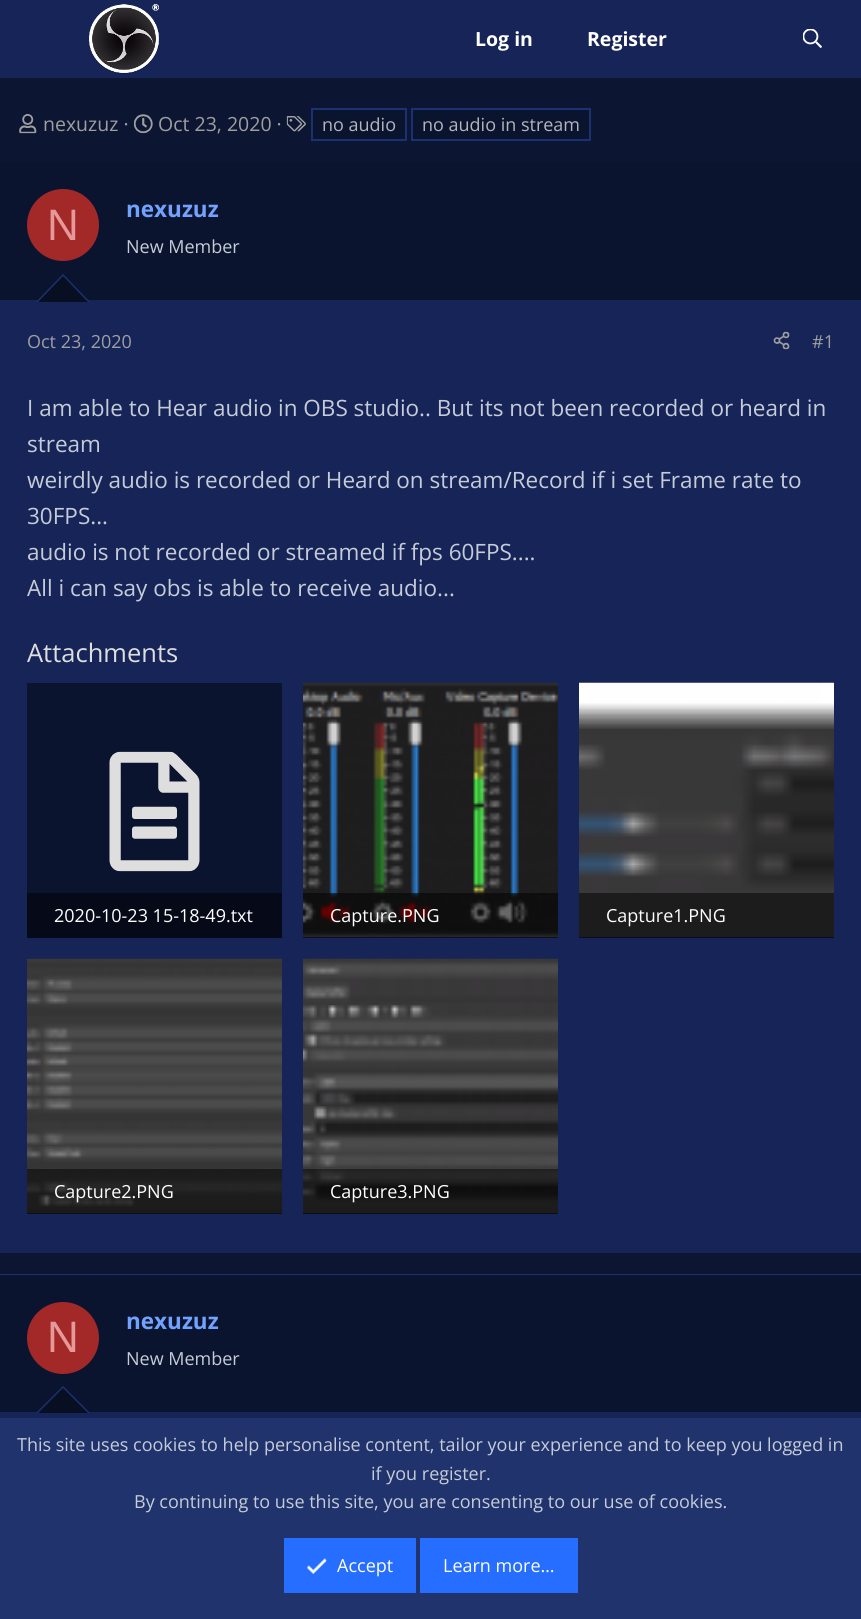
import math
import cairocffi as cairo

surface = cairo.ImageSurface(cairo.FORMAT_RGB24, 861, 1619)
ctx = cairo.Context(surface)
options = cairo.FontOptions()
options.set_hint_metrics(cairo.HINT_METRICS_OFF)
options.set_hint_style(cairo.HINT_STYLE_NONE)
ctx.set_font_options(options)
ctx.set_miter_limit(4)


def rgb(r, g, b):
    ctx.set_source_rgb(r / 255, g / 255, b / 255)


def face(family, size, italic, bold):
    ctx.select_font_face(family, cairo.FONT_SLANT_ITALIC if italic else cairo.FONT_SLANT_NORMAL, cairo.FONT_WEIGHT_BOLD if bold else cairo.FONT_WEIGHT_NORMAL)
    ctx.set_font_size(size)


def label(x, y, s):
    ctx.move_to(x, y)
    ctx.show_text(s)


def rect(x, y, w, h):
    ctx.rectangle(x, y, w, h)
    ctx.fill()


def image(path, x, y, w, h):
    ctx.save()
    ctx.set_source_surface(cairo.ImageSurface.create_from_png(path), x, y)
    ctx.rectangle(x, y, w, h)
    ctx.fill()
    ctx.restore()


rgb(12, 22, 51)
ctx.paint()
rgb(22, 36, 88)
rect(0, 0, 861, 78)
image('image0.png', 88, 4, 72, 70)
face('Open Sans', 19.5, 0, 1)
rgb(255, 255, 255)
label(475, 46, 'Log in')
label(587, 46, 'Register')
image('image1.png', 803, 29, 19, 19)
image('image2.png', 19, 114, 18, 20)
face('Open Sans', 19.5, 0, 0)
rgb(159, 159, 159)
label(43, 131, 'nexuzuz ·')
image('image3.png', 133, 114, 20, 20)
label(158, 131, 'Oct 23, 2020 ·')
image('image4.png', 286, 116, 20, 16)
rgb(11, 20, 47)
ctx.rectangle(312, 109, 94, 31)
ctx.fill_preserve()
rgb(27, 49, 113)
ctx.stroke()
face('Open Sans', 18, 0, 0)
rgb(179, 182, 187)
label(322, 131, 'no audio')
rgb(11, 20, 47)
ctx.rectangle(412, 109, 178, 31)
ctx.fill_preserve()
rgb(27, 49, 113)
ctx.stroke()
rgb(179, 182, 187)
label(422, 131, 'no audio in stream')
rgb(22, 36, 88)
rect(0, 300, 861, 953)
rgb(11, 20, 47)
rect(0, 162, 861, 138)
rgb(163, 41, 41)
ctx.new_path()
ctx.arc(63, 225, 36, 0, 2 * math.pi)
ctx.fill()
face('Liberation Sans', 44, 0, 0)
rgb(230, 153, 153)
label(47, 240, 'N')
face('Open Sans', 22.5, 0, 1)
rgb(114, 162, 255)
label(126, 217, 'nexuzuz')
face('Open Sans', 18, 0, 0)
rgb(198, 204, 215)
label(126, 253, 'New Member')
rgb(27, 49, 113)
ctx.new_path()
ctx.move_to(90, 302)
ctx.line_to(36, 302)
ctx.line_to(63, 274)
ctx.close_path()
ctx.fill()
rgb(8, 15, 34)
ctx.new_path()
ctx.move_to(88, 302)
ctx.line_to(38, 302)
ctx.line_to(63, 276)
ctx.close_path()
ctx.fill()
rgb(159, 159, 159)
label(27, 348, 'Oct 23, 2020')
image('image5.png', 773, 331, 17, 19)
label(812, 348, '#1')
face('Open Sans', 22.5, 0, 0)
rgb(198, 204, 215)
label(27, 416, 'I am able to Hear audio in OBS studio.. But its not been recorded or heard in')
label(27, 452, 'stream')
label(27, 488, 'weirdly audio is recorded or Heard on stream/Record if i set Frame rate to')
label(27, 524, '30FPS...')
label(27, 560, 'audio is not recorded or streamed if fps 60FPS....')
label(27, 596, 'All i can say obs is able to receive audio...')
face('Open Sans', 25.5, 0, 0)
rgb(222, 222, 222)
label(27, 662, 'Attachments')
rgb(11, 20, 47)
rect(27, 683, 255, 210)
image('image6.png', 109, 751, 91, 121)
rgb(6, 10, 24)
rect(27, 893, 255, 45)
face('Open Sans', 18, 0, 0)
rgb(255, 255, 255)
label(54, 922, '2020-10-23 15-18-49.txt')
rgb(11, 20, 47)
rect(303, 937, 255, 1)
image('image7.png', 303, 682, 255, 256)
ctx.set_source_rgba(0, 0, 0, 0.5)
rect(303, 893, 255, 45)
rgb(255, 255, 255)
label(330, 922, 'Capture.PNG')
rgb(11, 20, 47)
rect(579, 937, 255, 1)
image('image8.png', 579, 682, 255, 256)
ctx.set_source_rgba(0, 0, 0, 0.5)
rect(579, 893, 255, 45)
rgb(255, 255, 255)
label(606, 922, 'Capture1.PNG')
rgb(11, 20, 47)
rect(27, 1213, 255, 1)
image('image9.png', 27, 958, 255, 256)
ctx.set_source_rgba(0, 0, 0, 0.5)
rect(27, 1169, 255, 45)
rgb(255, 255, 255)
label(54, 1198, 'Capture2.PNG')
rgb(11, 20, 47)
rect(303, 1213, 255, 1)
image('image10.png', 303, 958, 255, 256)
ctx.set_source_rgba(0, 0, 0, 0.5)
rect(303, 1169, 255, 45)
rgb(255, 255, 255)
label(330, 1198, 'Capture3.PNG')
rgb(22, 36, 88)
rect(0, 1412, 861, 6)
rgb(27, 49, 113)
rect(0, 1274, 861, 1)
rgb(11, 20, 47)
rect(0, 1275, 861, 137)
rgb(163, 41, 41)
ctx.new_path()
ctx.arc(63, 1338, 36, 0, 2 * math.pi)
ctx.fill()
face('Liberation Sans', 44, 0, 0)
rgb(230, 153, 153)
label(47, 1352, 'N')
face('Open Sans', 22.5, 0, 1)
rgb(114, 162, 255)
label(126, 1329, 'nexuzuz')
face('Open Sans', 18, 0, 0)
rgb(198, 204, 215)
label(126, 1365, 'New Member')
rgb(27, 49, 113)
ctx.new_path()
ctx.move_to(90, 1413)
ctx.line_to(36, 1413)
ctx.line_to(63, 1386)
ctx.close_path()
ctx.fill()
rgb(8, 15, 34)
ctx.new_path()
ctx.move_to(88, 1413)
ctx.line_to(38, 1413)
ctx.line_to(63, 1388)
ctx.close_path()
ctx.fill()
rgb(32, 51, 109)
rect(0, 1418, 861, 201)
rgb(198, 204, 215)
label(17, 1451, 'This site uses cookies to help personalise content, tailor your experience and to keep you logged in')
label(371, 1480, 'if you register.')
label(134, 1508, 'By continuing to use this site, you are consenting to our use of cookies.')
rgb(37, 110, 255)
rect(284, 1538, 132, 55)
image('image11.png', 307, 1558, 20, 17)
rgb(255, 255, 255)
label(337, 1572, 'Accept')
rgb(37, 110, 255)
rect(420, 1538, 158, 55)
rgb(255, 255, 255)
label(443, 1572, 'Learn more…')
surface.write_to_png('render.png')
